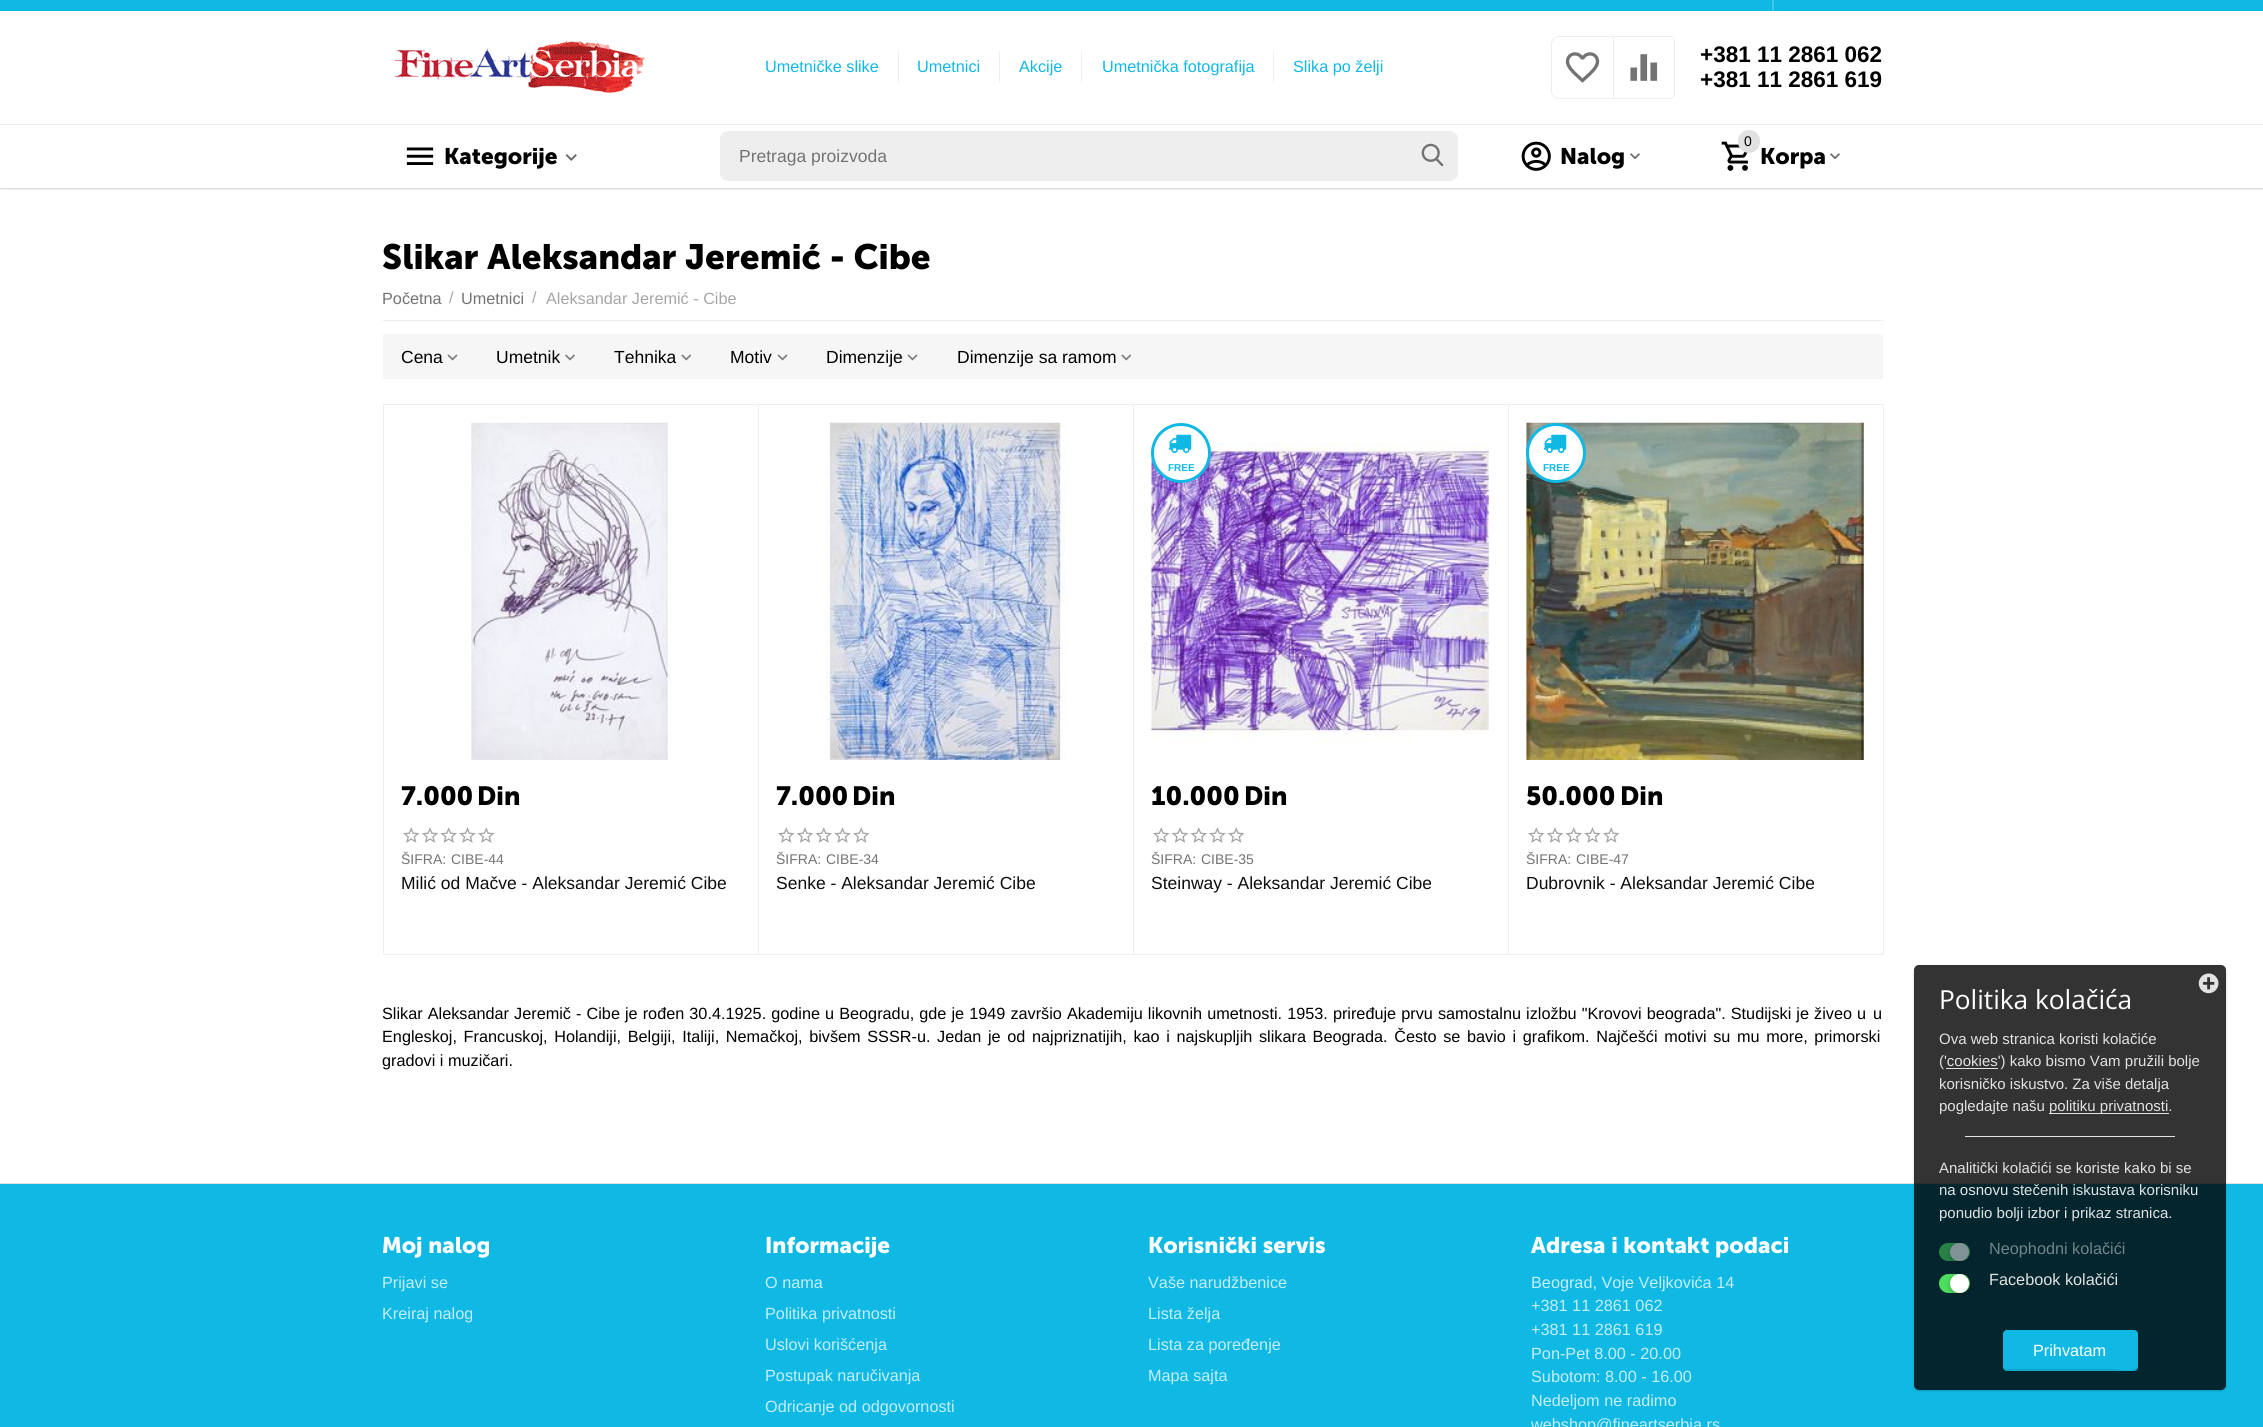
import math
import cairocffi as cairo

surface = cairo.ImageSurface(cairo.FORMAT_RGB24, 2263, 1427)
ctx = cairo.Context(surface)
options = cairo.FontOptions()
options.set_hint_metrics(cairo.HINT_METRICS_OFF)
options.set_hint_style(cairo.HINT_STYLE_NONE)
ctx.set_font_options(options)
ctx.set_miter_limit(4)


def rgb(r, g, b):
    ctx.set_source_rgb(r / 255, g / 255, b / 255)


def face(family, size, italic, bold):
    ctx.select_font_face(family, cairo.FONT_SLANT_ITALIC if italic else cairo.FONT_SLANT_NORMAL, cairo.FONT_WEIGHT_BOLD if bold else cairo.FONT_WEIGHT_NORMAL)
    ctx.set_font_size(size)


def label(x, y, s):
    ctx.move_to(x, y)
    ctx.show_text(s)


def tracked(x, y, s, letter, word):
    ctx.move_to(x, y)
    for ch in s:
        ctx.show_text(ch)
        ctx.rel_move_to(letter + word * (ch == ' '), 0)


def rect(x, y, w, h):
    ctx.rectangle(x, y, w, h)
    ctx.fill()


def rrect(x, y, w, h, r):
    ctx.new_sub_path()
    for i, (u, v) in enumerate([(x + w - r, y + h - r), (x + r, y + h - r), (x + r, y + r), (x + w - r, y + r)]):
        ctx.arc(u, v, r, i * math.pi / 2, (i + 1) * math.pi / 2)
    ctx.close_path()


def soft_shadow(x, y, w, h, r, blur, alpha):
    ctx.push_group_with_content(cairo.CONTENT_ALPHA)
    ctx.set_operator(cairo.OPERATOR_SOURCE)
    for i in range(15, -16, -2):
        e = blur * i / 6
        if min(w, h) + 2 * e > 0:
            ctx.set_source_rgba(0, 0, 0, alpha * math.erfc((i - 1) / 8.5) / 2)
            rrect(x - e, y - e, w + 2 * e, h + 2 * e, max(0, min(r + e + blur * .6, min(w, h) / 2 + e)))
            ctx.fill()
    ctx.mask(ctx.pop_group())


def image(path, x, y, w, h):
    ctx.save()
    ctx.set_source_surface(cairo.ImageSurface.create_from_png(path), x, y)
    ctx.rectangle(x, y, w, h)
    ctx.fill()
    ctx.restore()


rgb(255, 255, 255)
ctx.paint()
rgb(16, 185, 228)
rect(0, 0, 2263, 11)
rgb(64, 199, 233)
ctx.new_path()
ctx.move_to(1772, 11)
ctx.line_to(1772, -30)
ctx.line_to(1774, -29)
ctx.line_to(1774, 10)
ctx.close_path()
ctx.fill()
image('image0.png', 394, 41, 251, 52)
rgb(238, 238, 238)
rect(898, 51, 1, 32)
face('Liberation Sans', 16.25, 0, 0)
rgb(16, 185, 228)
label(765, 72, 'Umetničke slike')
rgb(238, 238, 238)
rect(999, 51, 1, 32)
rgb(16, 185, 228)
label(917, 72, 'Umetnici')
rgb(238, 238, 238)
rect(1081, 51, 1, 32)
rgb(16, 185, 228)
label(1019, 72, 'Akcije')
rgb(238, 238, 238)
rect(1273, 51, 1, 32)
rgb(16, 185, 228)
label(1102, 72, 'Umetnička fotografija')
label(1293, 72, 'Slika po želji')
ctx.new_path()
ctx.move_to(1613.5, 36.5)
ctx.line_to(1670, 36.5)
ctx.curve_to(1672.5, 36.5, 1674.5, 38.5, 1674.5, 41)
ctx.line_to(1674.5, 94)
ctx.curve_to(1674.5, 96.5, 1672.5, 98.5, 1670, 98.5)
ctx.line_to(1613.5, 98.5)
ctx.close_path()
rgb(238, 238, 238)
ctx.set_line_width(1)
ctx.stroke()
rgb(255, 255, 255)
ctx.new_path()
ctx.move_to(1559, 36.5)
ctx.line_to(1613.5, 36.5)
ctx.line_to(1613.5, 98.5)
ctx.line_to(1559, 98.5)
ctx.curve_to(1555, 98.5, 1551.5, 95, 1551.5, 91)
ctx.line_to(1551.5, 44)
ctx.curve_to(1551.5, 40, 1555, 36.5, 1559, 36.5)
ctx.close_path()
ctx.fill_preserve()
rgb(238, 238, 238)
ctx.stroke()
image('image1.png', 1565, 52, 35, 31)
image('image2.png', 1630, 54, 28, 27)
face('Liberation Sans', 22.5, 0, 1)
rgb(0, 0, 0)
label(1700, 62, '+381 11 2861 062')
label(1700, 87, '+381 11 2861 619')
rgb(0, 0, 0)
soft_shadow(0, 126, 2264, 64, 0, 1, 0.05)
soft_shadow(0, 125, 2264, 64, 0, 0.5, 0.1)
rgb(255, 255, 255)
rect(0, 125, 2263, 63)
rgb(238, 238, 238)
rect(0, 124, 2263, 1)
image('image3.png', 406, 147, 28, 18)
face('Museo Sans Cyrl', 22.5, 0, 1)
rgb(0, 0, 0)
label(444, 164, 'Kategorije')
image('image4.png', 565, 154, 12, 7)
rgb(238, 238, 238)
rrect(720, 131, 738, 50, 8)
ctx.fill()
face('Liberation Sans', 17.5, 0, 0)
rgb(115, 115, 115)
label(739, 162, 'Pretraga proizvoda')
image('image5.png', 1421, 143, 23, 24)
image('image6.png', 1521, 141, 30, 30)
face('Museo Sans Cyrl', 22.5, 0, 1)
rgb(0, 0, 0)
label(1560, 164, 'Nalog')
image('image7.png', 1630, 153, 10, 7)
image('image8.png', 1721, 141, 27, 30)
rgb(225, 225, 225)
rrect(1738, 130, 22, 23, 11)
ctx.fill()
face('Liberation Sans', 14, 0, 0)
rgb(0, 0, 0)
label(1744, 146, '0')
face('Museo Sans Cyrl', 22.5, 0, 1)
label(1760, 164, 'Korpa')
image('image7.png', 1830, 153, 10, 7)
face('Museo Sans Cyrl', 35, 0, 1)
label(382, 269, 'Slikar Aleksandar Jeremić - Cibe')
rgb(238, 238, 238)
rect(383, 320, 1500, 1)
face('Liberation Sans', 16.25, 0, 0)
rgb(115, 115, 115)
label(382, 304, 'Početna')
rgb(166, 166, 166)
label(449, 303, '/')
rgb(115, 115, 115)
label(461, 304, 'Umetnici')
rgb(166, 166, 166)
label(532, 303, '/')
label(546, 304, 'Aleksandar Jeremić - Cibe')
rgb(246, 246, 246)
rect(383, 334, 1500, 45)
face('Liberation Sans', 17.5, 0, 0)
rgb(0, 0, 0)
label(401, 363, 'Cena')
image('image9.png', 447, 354, 11, 7)
label(496, 363, 'Umetnik')
image('image10.png', 565, 354, 10, 7)
label(614, 363, 'Tehnika')
image('image11.png', 681, 354, 11, 7)
label(730, 363, 'Motiv')
image('image9.png', 777, 354, 11, 7)
label(826, 363, 'Dimenzije')
image('image9.png', 907, 354, 11, 7)
label(957, 363, 'Dimenzije sa ramom')
image('image11.png', 1121, 354, 11, 7)
ctx.rectangle(383.5, 404.5, 375, 550)
rgb(238, 238, 238)
ctx.stroke()
image('image12.png', 471, 422, 200, 338)
face('Museo Sans Cyrl', 26.25, 0, 1)
rgb(0, 0, 0)
label(401, 805, '7.000')
label(477, 805, 'Din')
image('image13.png', 403, 827, 92, 16)
face('Liberation Sans', 14, 0, 0)
rgb(115, 115, 115)
label(401, 864, 'ŠIFRA:')
label(451, 864, 'CIBE-44')
face('Liberation Sans', 17.5, 0, 0)
rgb(13, 13, 13)
label(401, 889, 'Milić od Mačve - Aleksandar Jeremić Cibe')
ctx.rectangle(758.5, 404.5, 375, 550)
rgb(238, 238, 238)
ctx.stroke()
image('image14.png', 826, 422, 241, 338)
face('Museo Sans Cyrl', 26.25, 0, 1)
rgb(0, 0, 0)
label(776, 805, '7.000')
label(852, 805, 'Din')
image('image13.png', 778, 827, 92, 16)
face('Liberation Sans', 14, 0, 0)
rgb(115, 115, 115)
label(776, 864, 'ŠIFRA:')
label(826, 864, 'CIBE-34')
face('Liberation Sans', 17.5, 0, 0)
rgb(13, 13, 13)
label(776, 889, 'Senke - Aleksandar Jeremić Cibe')
ctx.rectangle(1133.5, 404.5, 375, 550)
rgb(238, 238, 238)
ctx.stroke()
image('image15.png', 1151, 442, 338, 301)
rgb(255, 255, 255)
ctx.arc(1181, 453, 28.5, 0, 2 * math.pi)
ctx.fill_preserve()
rgb(16, 185, 228)
ctx.set_line_width(3)
ctx.stroke()
image('image16.png', 1168, 434, 24, 20)
face('Liberation Sans', 10, 0, 1)
label(1168, 471, 'FREE')
face('Museo Sans Cyrl', 26.25, 0, 1)
rgb(0, 0, 0)
label(1151, 805, '10.000')
label(1244, 805, 'Din')
image('image13.png', 1153, 827, 92, 16)
face('Liberation Sans', 14, 0, 0)
rgb(115, 115, 115)
label(1151, 864, 'ŠIFRA:')
label(1201, 864, 'CIBE-35')
face('Liberation Sans', 17.5, 0, 0)
rgb(13, 13, 13)
label(1151, 889, 'Steinway - Aleksandar Jeremić Cibe')
ctx.rectangle(1508.5, 404.5, 375, 550)
rgb(238, 238, 238)
ctx.set_line_width(1)
ctx.stroke()
image('image17.png', 1526, 422, 338, 338)
rgb(255, 255, 255)
ctx.arc(1556, 453, 28.5, 0, 2 * math.pi)
ctx.fill_preserve()
rgb(16, 185, 228)
ctx.set_line_width(3)
ctx.stroke()
image('image16.png', 1543, 434, 24, 20)
face('Liberation Sans', 10, 0, 1)
label(1543, 471, 'FREE')
face('Museo Sans Cyrl', 26.25, 0, 1)
rgb(0, 0, 0)
label(1526, 805, '50.000')
label(1620, 805, 'Din')
image('image13.png', 1528, 827, 92, 16)
face('Liberation Sans', 14, 0, 0)
rgb(115, 115, 115)
label(1526, 864, 'ŠIFRA:')
label(1576, 864, 'CIBE-47')
face('Liberation Sans', 17.5, 0, 0)
rgb(13, 13, 13)
label(1526, 889, 'Dubrovnik - Aleksandar Jeremić Cibe')
face('Liberation Sans', 16.25, 0, 0)
rgb(0, 0, 0)
tracked(382, 1019, 'Slikar Aleksandar Jeremič - Cibe je rođen 30.4.1925. godine u Beogradu, gde je 1949 završio Akademiju likovnih umetnosti. 1953. priređuje prvu samostalnu izložbu "Krovovi beograda". Studijski je živeo u', 0, 0.55)
label(1873, 1019, 'u')
tracked(382, 1042, 'Engleskoj, Francuskoj, Holandiji, Belgiji, Italiji, Nemačkoj, bivšem SSSR-u. Jedan je od najpriznatijih, kao i najskupljih slikara Beograda. Često se bavio i grafikom. Najčešći motivi su mu more, primorski', 0, 2.1)
label(382, 1066, 'gradovi i muzičari.')
rgb(16, 185, 228)
rect(0, 1184, 2263, 243)
rgb(225, 225, 225)
rect(0, 1183, 2263, 1)
face('Museo Sans Cyrl', 22.5, 0, 1)
rgb(255, 255, 255)
label(382, 1253, 'Moj nalog')
face('Liberation Sans', 16.25, 0, 0)
rgb(195, 238, 248)
label(382, 1288, 'Prijavi se')
label(382, 1319, 'Kreiraj nalog')
face('Museo Sans Cyrl', 22.5, 0, 1)
rgb(255, 255, 255)
label(765, 1253, 'Informacije')
face('Liberation Sans', 16.25, 0, 0)
rgb(195, 238, 248)
label(765, 1288, 'O nama')
label(765, 1319, 'Politika privatnosti')
label(765, 1350, 'Uslovi korišćenja')
label(765, 1381, 'Postupak naručivanja')
label(765, 1412, 'Odricanje od odgovornosti')
face('Museo Sans Cyrl', 22.5, 0, 1)
rgb(255, 255, 255)
label(1148, 1253, 'Korisnički servis')
face('Liberation Sans', 16.25, 0, 0)
rgb(195, 238, 248)
label(1148, 1288, 'Vaše narudžbenice')
label(1148, 1319, 'Lista želja')
label(1148, 1350, 'Lista za poređenje')
label(1148, 1381, 'Mapa sajta')
face('Museo Sans Cyrl', 22.5, 0, 1)
rgb(255, 255, 255)
label(1531, 1253, 'Adresa i kontakt podaci')
face('Liberation Sans', 16.25, 0, 0)
rgb(195, 238, 248)
label(1531, 1288, 'Beograd, Voje Veljkovića 14')
label(1531, 1311, '+381 11 2861 062')
label(1531, 1335, '+381 11 2861 619')
label(1531, 1359, 'Pon-Pet 8.00 - 20.00')
label(1531, 1382, 'Subotom: 8.00 - 16.00')
label(1531, 1406, 'Nedeljom ne radimo')
label(1531, 1430, 'webshop@fineartserbia.rs')
ctx.save()
ctx.set_fill_rule(cairo.FILL_RULE_EVEN_ODD)
ctx.new_path()
ctx.move_to(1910, 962)
ctx.line_to(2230, 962)
ctx.line_to(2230, 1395)
ctx.line_to(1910, 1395)
ctx.close_path()
ctx.move_to(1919, 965)
ctx.line_to(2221, 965)
ctx.curve_to(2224, 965, 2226, 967, 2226, 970)
ctx.line_to(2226, 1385)
ctx.curve_to(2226, 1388, 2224, 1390, 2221, 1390)
ctx.line_to(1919, 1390)
ctx.curve_to(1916, 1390, 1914, 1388, 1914, 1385)
ctx.line_to(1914, 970)
ctx.curve_to(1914, 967, 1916, 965, 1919, 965)
ctx.close_path()
ctx.clip()
rgb(0, 0, 0)
soft_shadow(1914, 966, 312, 425, 5, 1, 0.2)
ctx.restore()
ctx.set_source_rgba(0, 0, 0, 0.8)
rrect(1914, 965, 312, 425, 5)
ctx.fill()
image('image18.png', 2198, 973, 21, 21)
face('Open Sans', 26.25, 0, 0)
rgb(255, 255, 255)
label(1939, 1009, 'Politika kolačića')
face('Liberation Sans', 15, 0, 0)
rgb(226, 226, 226)
label(1939, 1044, 'Ova web stranica koristi kolačiće')
label(1939, 1066, '(\'cookies\') kako bismo Vam pružili bolje')
rect(1946, 1068, 52, 1)
label(1939, 1089, 'korisničko iskustvo. Za više detalja')
label(1939, 1111, 'pogledajte našu')
rect(2049, 1113, 120, 1)
label(2049, 1111, 'politiku privatnosti.')
rect(1965, 1136, 210, 1)
label(1939, 1173, 'Analitički kolačići se koriste kako bi se')
label(1939, 1195, 'na osnovu stečenih iskustava korisniku')
label(1939, 1218, 'ponudio bolji izbor i prikaz stranica.')
rgb(40, 130, 70)
rrect(1939, 1243, 31, 18, 9)
ctx.fill()
rgb(2, 18, 23)
soft_shadow(1950, 1244, 20, 20, 10, 2.5, 0.25)
rgb(129, 146, 150)
rrect(1950, 1243, 19, 18, 9)
ctx.fill()
face('Liberation Sans', 16.25, 0, 0)
rgb(115, 132, 136)
label(1989, 1254, 'Neophodni kolačići')
rgb(77, 222, 94)
rrect(1939, 1274, 31, 19, 9.5)
ctx.fill()
rgb(0, 0, 0)
soft_shadow(1950, 1275, 20, 20, 10, 2.5, 0.25)
rgb(255, 255, 255)
ctx.arc(1959.5, 1283.5, 9.5, 0, 2 * math.pi)
ctx.fill()
rgb(226, 226, 226)
label(1989, 1285, 'Facebook kolačići')
rgb(16, 185, 228)
rrect(2003, 1330, 135, 41, 4)
ctx.fill()
ctx.set_source_rgba(0, 0, 0, 0.1)
ctx.new_path()
ctx.move_to(2003, 1368)
ctx.curve_to(2003, 1369, 2005, 1371, 2007, 1371)
ctx.line_to(2134, 1371)
ctx.curve_to(2136, 1371, 2138, 1369, 2138, 1367)
ctx.line_to(2138, 1365)
ctx.line_to(2138, 1366)
ctx.curve_to(2135, 1373, 2114, 1369, 2113, 1369)
ctx.line_to(2006, 1369)
ctx.close_path()
ctx.fill()
rgb(255, 255, 255)
label(2033, 1356, 'Prihvatam')
surface.write_to_png('render.png')
